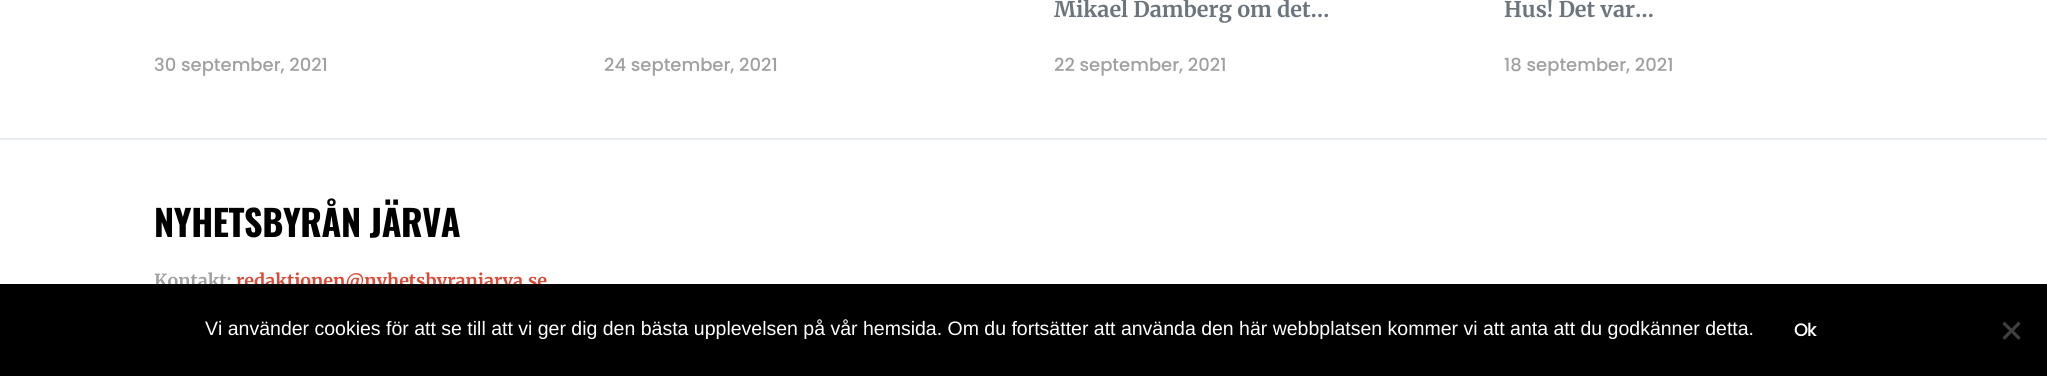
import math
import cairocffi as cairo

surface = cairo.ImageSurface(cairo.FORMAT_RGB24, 2047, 376)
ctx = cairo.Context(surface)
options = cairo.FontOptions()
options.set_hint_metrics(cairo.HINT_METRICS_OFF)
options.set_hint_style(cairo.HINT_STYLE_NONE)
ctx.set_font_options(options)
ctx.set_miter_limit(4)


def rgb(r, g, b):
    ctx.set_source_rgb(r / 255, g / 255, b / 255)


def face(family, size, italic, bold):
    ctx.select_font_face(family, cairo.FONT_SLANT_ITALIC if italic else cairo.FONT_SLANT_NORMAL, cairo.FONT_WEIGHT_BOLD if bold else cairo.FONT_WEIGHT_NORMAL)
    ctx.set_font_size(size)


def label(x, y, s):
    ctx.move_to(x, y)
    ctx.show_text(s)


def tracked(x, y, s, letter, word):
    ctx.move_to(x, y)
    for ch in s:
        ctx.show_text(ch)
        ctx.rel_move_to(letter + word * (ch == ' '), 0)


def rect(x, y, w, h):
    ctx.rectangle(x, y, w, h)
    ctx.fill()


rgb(255, 255, 255)
ctx.paint()
face('Poppins Medium', 18, 0, 0)
rgb(160, 160, 160)
label(154, 71, '30 september, 2021')
label(604, 71, '24 september, 2021')
face('Merriweather', 21.6, 0, 1)
rgb(108, 117, 125)
label(1054, 17, 'Mikael Damberg om det…')
face('Poppins Medium', 18, 0, 0)
rgb(160, 160, 160)
label(1054, 71, '22 september, 2021')
face('Merriweather', 21.6, 0, 1)
rgb(108, 117, 125)
label(1504, 17, 'Hus! Det var…')
face('Poppins Medium', 18, 0, 0)
rgb(160, 160, 160)
label(1504, 71, '18 september, 2021')
rgb(233, 236, 239)
rect(0, 138, 2047, 2)
face('Oswald', 36, 0, 1)
rgb(0, 0, 0)
tracked(154, 237, 'NYHETSBYRÅN JÄRVA', -0.4, 0)
face('Merriweather', 18, 0, 1)
rgb(160, 160, 160)
label(154, 287, 'Kontakt:')
rgb(219, 74, 55)
label(236, 287, 'redaktionen@nyhetsbyranjarva.se')
rgb(0, 0, 0)
rect(0, 284, 2047, 92)
face('Liberation Sans', 19.5, 0, 0)
rgb(255, 255, 255)
label(205, 335, 'Vi använder cookies för att se till att vi ger dig den bästa upplevelsen på vår hemsida. Om du fortsätter att använda den här webbplatsen kommer vi att anta att du godkänner detta.')
face('Poppins Medium', 18, 0, 0)
tracked(1794, 336, 'Ok', -1, 0)
rgb(64, 64, 64)
ctx.new_path()
ctx.move_to(2018.5, 321.5)
ctx.line_to(2020.5, 324)
ctx.line_to(2004.5, 340)
ctx.line_to(2002.5, 337.5)
ctx.close_path()
ctx.fill()
ctx.new_path()
ctx.move_to(2002.5, 324)
ctx.line_to(2004.5, 321.5)
ctx.line_to(2020.5, 337.5)
ctx.line_to(2018.5, 340)
ctx.close_path()
ctx.fill()
surface.write_to_png('render.png')
